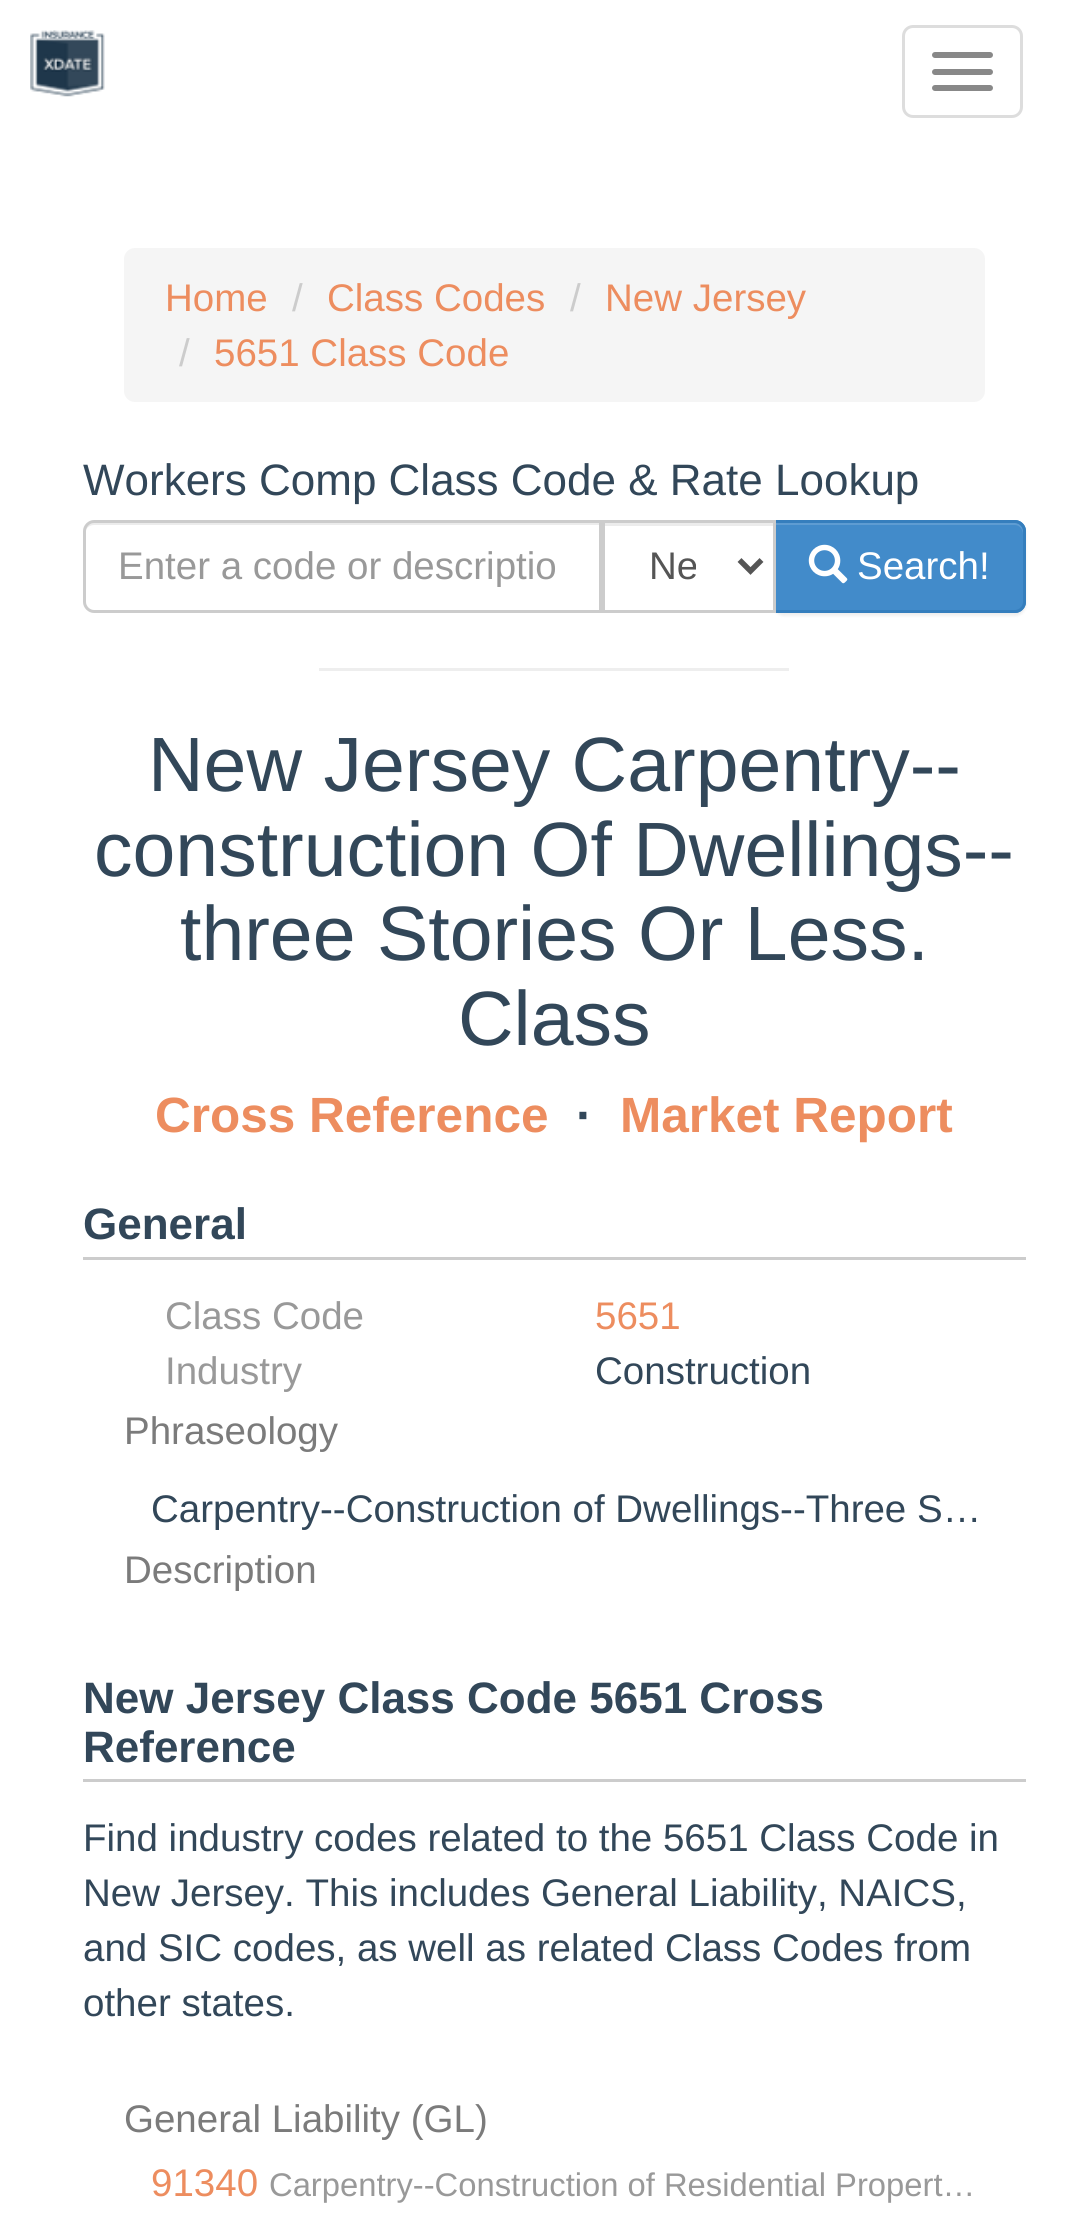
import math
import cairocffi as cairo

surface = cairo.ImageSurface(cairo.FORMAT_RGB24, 1066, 2236)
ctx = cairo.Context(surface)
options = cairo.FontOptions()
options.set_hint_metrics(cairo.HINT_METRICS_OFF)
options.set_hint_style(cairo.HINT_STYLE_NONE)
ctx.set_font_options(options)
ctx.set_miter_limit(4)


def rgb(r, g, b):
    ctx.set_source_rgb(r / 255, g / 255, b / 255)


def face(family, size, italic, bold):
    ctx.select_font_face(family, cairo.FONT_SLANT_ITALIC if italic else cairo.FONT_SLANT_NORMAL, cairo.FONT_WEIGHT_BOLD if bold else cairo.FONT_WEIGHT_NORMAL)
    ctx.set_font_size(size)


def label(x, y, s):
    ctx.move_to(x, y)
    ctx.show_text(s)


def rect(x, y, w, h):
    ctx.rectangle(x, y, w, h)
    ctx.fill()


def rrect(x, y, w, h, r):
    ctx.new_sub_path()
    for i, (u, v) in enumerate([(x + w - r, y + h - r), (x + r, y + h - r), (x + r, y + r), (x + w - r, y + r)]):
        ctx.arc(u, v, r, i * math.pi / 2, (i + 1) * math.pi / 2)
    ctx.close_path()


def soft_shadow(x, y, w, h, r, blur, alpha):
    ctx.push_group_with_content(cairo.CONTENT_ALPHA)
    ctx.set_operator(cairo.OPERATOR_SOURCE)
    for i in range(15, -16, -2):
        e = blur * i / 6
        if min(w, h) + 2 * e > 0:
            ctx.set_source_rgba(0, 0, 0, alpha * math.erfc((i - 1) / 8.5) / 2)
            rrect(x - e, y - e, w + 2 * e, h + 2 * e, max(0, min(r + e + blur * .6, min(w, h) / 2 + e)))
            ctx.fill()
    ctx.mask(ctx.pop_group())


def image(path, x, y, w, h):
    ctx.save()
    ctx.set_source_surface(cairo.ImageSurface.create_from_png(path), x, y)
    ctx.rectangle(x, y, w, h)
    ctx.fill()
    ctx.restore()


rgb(255, 255, 255)
ctx.paint()
image('image0.png', 30, 30, 75, 67)
rrect(903.5, 26.5, 118, 90, 9.5)
rgb(221, 221, 221)
ctx.set_line_width(3)
ctx.stroke()
rgb(136, 136, 136)
rrect(932, 52, 61, 6, 3)
ctx.fill()
rrect(932, 69, 61, 6, 3)
ctx.fill()
rrect(932, 85, 61, 6, 3)
ctx.fill()
rgb(245, 245, 245)
rrect(124, 248, 861, 154, 11)
ctx.fill()
face('Liberation Sans', 38.5, 0, 0)
rgb(237, 141, 95)
label(165, 311, 'Home')
rgb(204, 204, 204)
label(292, 311, '/')
rgb(237, 141, 95)
label(327, 311, 'Class Codes')
rgb(204, 204, 204)
label(570, 311, '/')
rgb(237, 141, 95)
label(605, 311, 'New Jersey')
rgb(204, 204, 204)
label(179, 366, '/')
rgb(237, 141, 95)
label(214, 366, '5651 Class Code')
face('Liberation Sans', 44, 0, 0)
rgb(50, 71, 89)
label(83, 495, 'Workers Comp Class Code & Rate Lookup')
rgb(236, 236, 236)
ctx.new_path()
ctx.move_to(94, 525)
ctx.line_to(600, 525)
ctx.line_to(600, 523)
ctx.line_to(93, 523)
ctx.curve_to(89, 523, 85, 527, 85, 531)
ctx.line_to(85, 534)
ctx.curve_to(85, 529, 89, 525, 94, 525)
ctx.close_path()
ctx.fill()
ctx.new_path()
ctx.move_to(94, 521.5)
ctx.line_to(600.5, 521.5)
ctx.line_to(600.5, 611.5)
ctx.line_to(94, 611.5)
ctx.curve_to(89, 611.5, 84.5, 607, 84.5, 602)
ctx.line_to(84.5, 531)
ctx.curve_to(84.5, 526, 89, 521.5, 94, 521.5)
ctx.close_path()
rgb(204, 204, 204)
ctx.stroke()
face('Liberation Sans', 38.5, 0, 0)
rgb(153, 153, 153)
label(118, 579, 'Enter a code or descriptio')
rgb(0, 0, 0)
soft_shadow(773, 523, 253, 93, 11, 1.5, 0.07)
rgb(255, 255, 255)
rect(771, 529, 2, 81)
rgb(236, 236, 236)
rect(605, 523, 168, 3)
rgb(66, 139, 202)
ctx.new_path()
ctx.move_to(773, 520)
ctx.line_to(1015, 520)
ctx.curve_to(1021, 520, 1026, 525, 1026, 531)
ctx.line_to(1026, 602)
ctx.curve_to(1026, 608, 1021, 613, 1015, 613)
ctx.line_to(773, 613)
ctx.close_path()
ctx.fill()
rgb(94, 156, 210)
ctx.new_path()
ctx.move_to(776, 525)
ctx.line_to(1015, 525)
ctx.curve_to(1019, 525, 1023, 529, 1023, 534)
ctx.line_to(1023, 531)
ctx.curve_to(1023, 527, 1019, 523, 1015, 523)
ctx.line_to(776, 523)
ctx.close_path()
ctx.fill()
ctx.new_path()
ctx.move_to(774.5, 521.5)
ctx.line_to(1015, 521.5)
ctx.curve_to(1020, 521.5, 1024.5, 526, 1024.5, 531)
ctx.line_to(1024.5, 602)
ctx.curve_to(1024.5, 607, 1020, 611.5, 1015, 611.5)
ctx.line_to(774.5, 611.5)
ctx.close_path()
rgb(53, 126, 189)
ctx.stroke()
ctx.rectangle(603.5, 521.5, 171, 90)
rgb(204, 204, 204)
ctx.stroke()
ctx.new_path()
ctx.move_to(739.5, 560)
ctx.line_to(750.5, 571)
ctx.line_to(761.5, 560)
rgb(85, 85, 85)
ctx.set_line_width(5.5)
ctx.stroke()
ctx.save()
ctx.rectangle(649, 542, 47, 49)
ctx.clip()
label(649, 579, 'Ne')
ctx.restore()
image('image1.png', 808, 544, 40, 40)
rgb(255, 255, 255)
label(857, 579, 'Search!')
rgb(238, 238, 238)
rect(319, 668, 470, 3)
face('Liberation Sans', 77, 0, 0)
rgb(50, 71, 89)
label(148, 791, 'New Jersey Carpentry--')
label(94, 876, 'construction Of Dwellings--')
label(180, 960, 'three Stories Or Less.')
label(458, 1045, 'Class')
face('Liberation Sans', 49.5, 0, 1)
rgb(237, 141, 95)
label(155, 1132, 'Cross Reference')
rgb(50, 71, 89)
label(576, 1132, '·')
rgb(237, 141, 95)
label(620, 1132, 'Market Report')
rgb(204, 204, 204)
rect(83, 1257, 943, 3)
face('Liberation Sans', 44, 0, 1)
rgb(50, 71, 89)
label(83, 1239, 'General')
face('Liberation Sans', 38.5, 0, 0)
rgb(153, 153, 153)
label(165, 1329, 'Class Code')
rgb(237, 141, 95)
label(595, 1329, '5651')
rgb(153, 153, 153)
label(165, 1384, 'Industry')
rgb(50, 71, 89)
label(595, 1384, 'Construction')
rgb(123, 123, 123)
label(124, 1444, 'Phraseology')
rgb(50, 71, 89)
label(151, 1522, 'Carpentry--Construction of Dwellings--Three S…')
rgb(123, 123, 123)
label(124, 1583, 'Description')
rgb(204, 204, 204)
rect(83, 1779, 943, 3)
face('Liberation Sans', 44, 0, 1)
rgb(50, 71, 89)
label(83, 1713, 'New Jersey Class Code 5651 Cross')
label(83, 1762, 'Reference')
face('Liberation Sans', 38.5, 0, 0)
label(83, 1851, 'Find industry codes related to the 5651 Class Code in')
label(83, 1906, 'New Jersey. This includes General Liability, NAICS,')
label(83, 1961, 'and SIC codes, as well as related Class Codes from')
label(83, 2016, 'other states.')
rgb(123, 123, 123)
label(124, 2132, 'General Liability (GL)')
rgb(237, 141, 95)
label(151, 2196, '91340')
face('Liberation Sans', 32.75, 0, 0)
rgb(153, 153, 153)
label(269, 2196, 'Carpentry--Construction of Residential Propert…')
surface.write_to_png('render.png')
